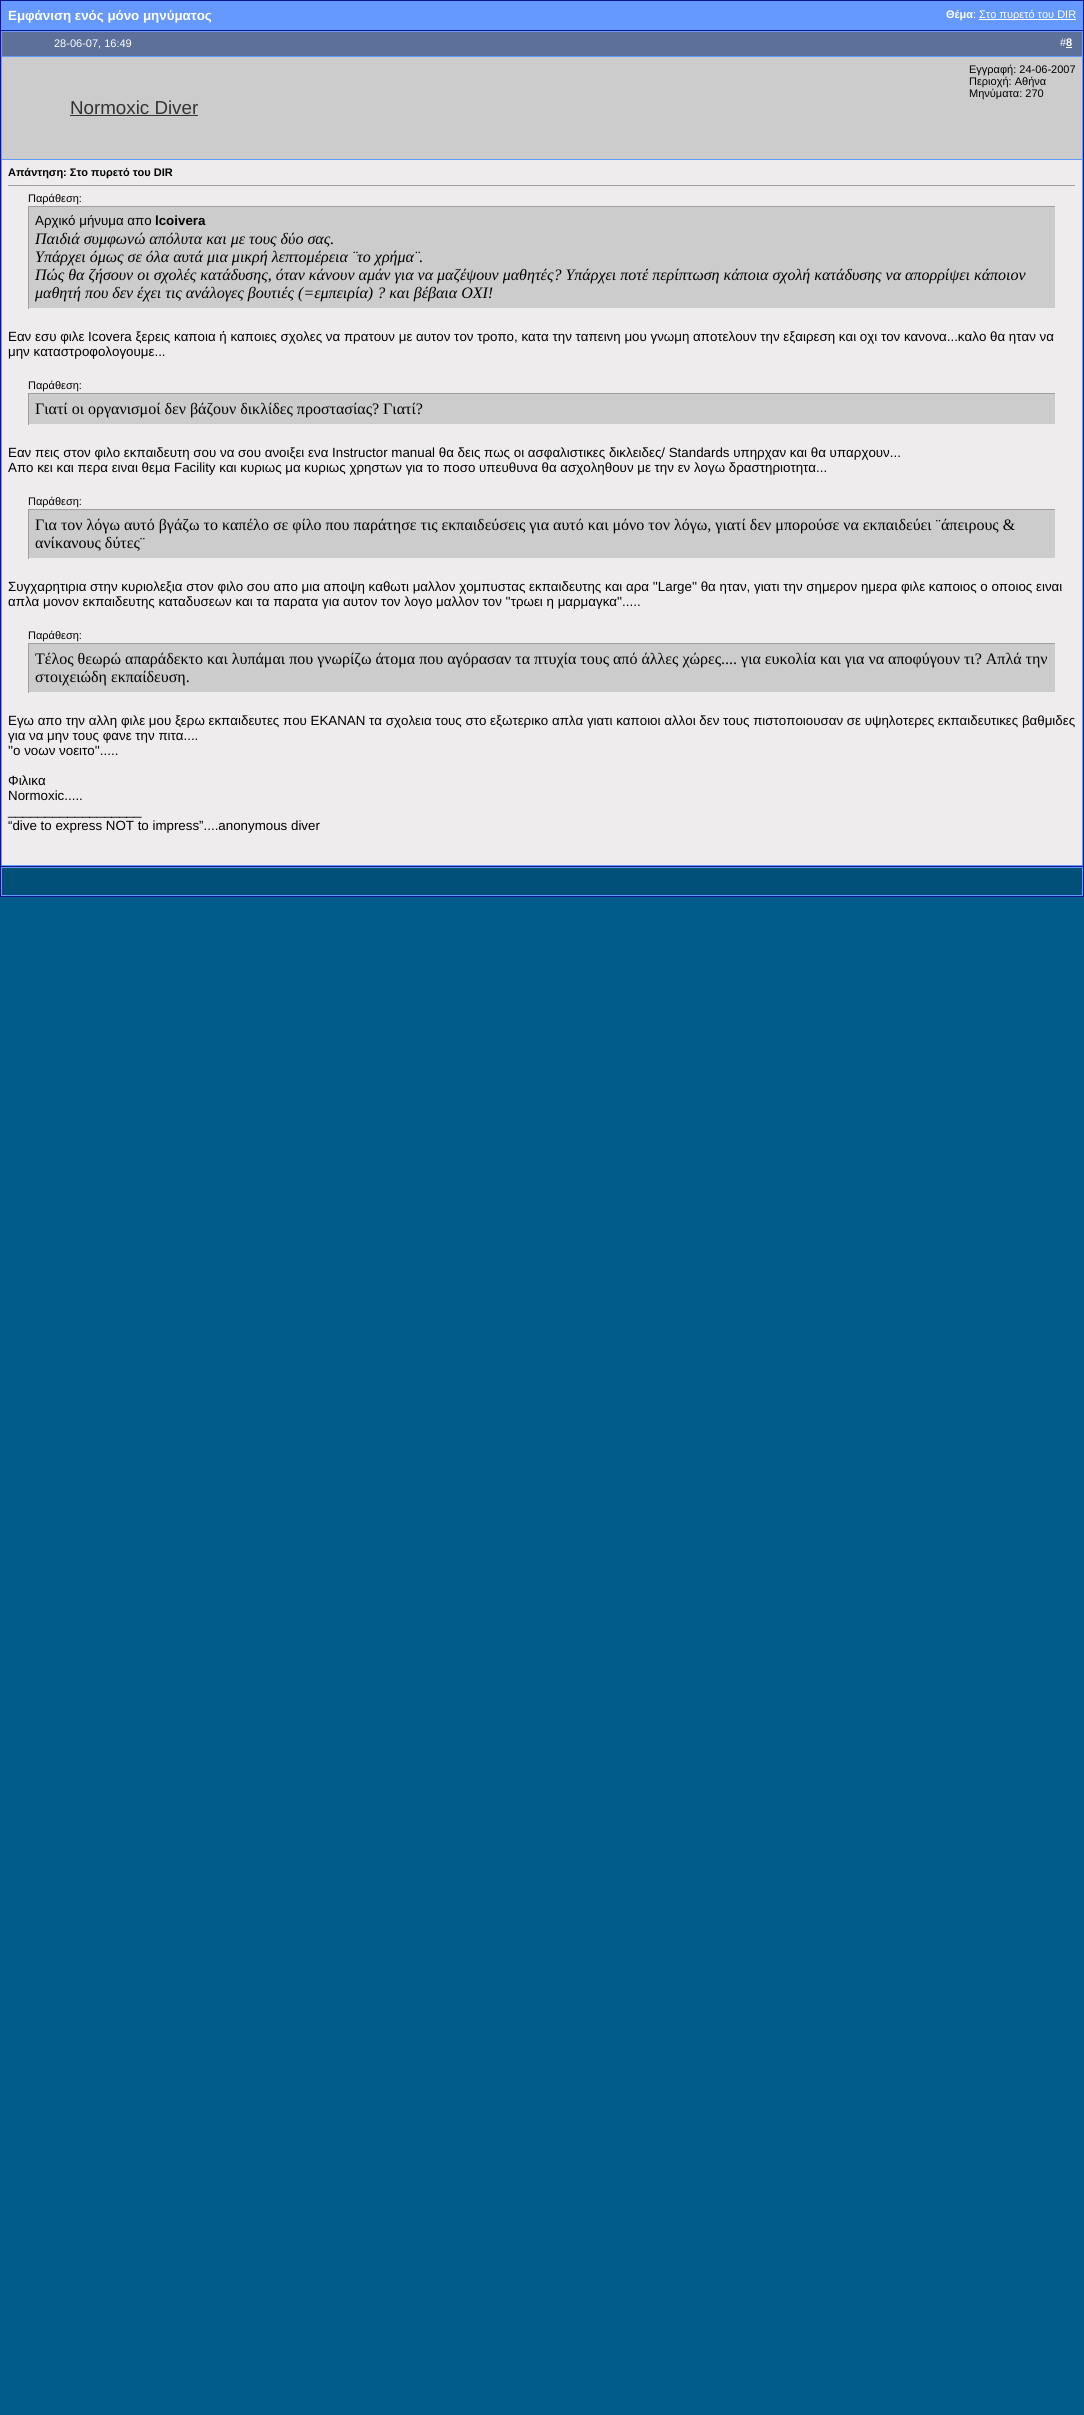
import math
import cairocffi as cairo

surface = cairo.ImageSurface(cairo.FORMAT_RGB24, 1084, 2415)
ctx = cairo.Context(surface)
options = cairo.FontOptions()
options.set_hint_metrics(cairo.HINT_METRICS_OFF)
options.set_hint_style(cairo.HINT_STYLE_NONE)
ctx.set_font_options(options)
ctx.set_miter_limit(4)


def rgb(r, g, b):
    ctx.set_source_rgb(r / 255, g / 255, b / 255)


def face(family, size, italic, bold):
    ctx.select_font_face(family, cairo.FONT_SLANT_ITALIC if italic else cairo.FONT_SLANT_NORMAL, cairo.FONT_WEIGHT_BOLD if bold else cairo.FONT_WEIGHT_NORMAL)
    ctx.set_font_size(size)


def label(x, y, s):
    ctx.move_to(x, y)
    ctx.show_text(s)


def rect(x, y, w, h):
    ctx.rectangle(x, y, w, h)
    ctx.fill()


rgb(2, 92, 139)
ctx.paint()
rgb(102, 153, 255)
rect(1, 1, 1082, 29)
rgb(11, 25, 140)
rect(0, 0, 1084, 1)
rect(1083, 0, 1, 30)
rect(0, 0, 1, 30)
face('Liberation Sans', 13.33, 0, 1)
rgb(255, 255, 255)
label(8, 20, 'Εμφάνιση ενός μόνο μηνύματος')
face('Liberation Sans', 11, 0, 1)
label(946, 18, 'Θέμα')
face('Liberation Sans', 11, 0, 0)
label(973, 18, ':')
rect(979, 19, 97, 1)
label(979, 18, 'Στο πυρετό του DIR')
rgb(102, 153, 255)
ctx.rectangle(0.5, 30.5, 1083, 836)
ctx.fill_preserve()
rgb(11, 25, 140)
ctx.set_line_width(1)
ctx.stroke()
rgb(92, 112, 153)
rect(2, 32, 1080, 24)
rgb(255, 255, 255)
label(54, 47, '28-06-07, 16:49')
label(1060, 46, '#')
face('Liberation Sans', 11, 0, 1)
label(1066, 46, '8')
rect(1066, 47, 6, 1)
rgb(204, 204, 204)
rect(2, 57, 1080, 102)
face('Liberation Sans', 11, 0, 0)
rgb(0, 0, 0)
label(969, 73, 'Εγγραφή: 24-06-2007')
label(969, 85, 'Περιοχή: Αθήνα')
label(969, 97, 'Μηνύματα: 270')
face('Liberation Sans', 18.75, 0, 0)
rgb(51, 51, 51)
label(70, 114, 'Normoxic Diver')
rect(70, 115, 128, 1)
rgb(238, 236, 236)
rect(2, 160, 1080, 705)
face('Liberation Sans', 11, 0, 1)
rgb(0, 0, 0)
label(8, 176, 'Απάντηση: Στο πυρετό του DIR')
rgb(159, 159, 159)
rect(8, 185, 1068, 1)
rgb(238, 238, 238)
rect(1075, 185, 1, 1)
face('Liberation Sans', 11, 0, 0)
rgb(0, 0, 0)
label(28, 202, 'Παράθεση:')
rgb(204, 204, 204)
rect(29, 207, 1026, 101)
rgb(159, 159, 159)
rect(28, 206, 1028, 1)
rgb(238, 238, 238)
rect(1055, 206, 1, 1)
rgb(159, 159, 159)
rect(28, 206, 1, 103)
face('Liberation Sans', 13.33, 0, 0)
rgb(0, 0, 0)
label(35, 225, 'Αρχικό μήνυμα απο')
face('Liberation Sans', 13.33, 0, 1)
label(155, 225, 'lcoivera')
face('Liberation Serif', 16, 1, 0)
label(35, 244, 'Παιδιά συμφωνώ απόλυτα και με τους δύο σας.')
label(35, 262, 'Υπάρχει όμως σε όλα αυτά μια μικρή λεπτομέρεια ¨το χρήμα¨.')
label(35, 280, 'Πώς θα ζήσουν οι σχολές κατάδυσης, όταν κάνουν αμάν για να μαζέψουν μαθητές? Υπάρχει ποτέ περίπτωση κάποια σχολή κατάδυσης να απορρίψει κάποιον')
label(35, 298, 'μαθητή που δεν έχει τις ανάλογες βουτιές (=εμπειρία) ? και βέβαια ΟΧΙ!')
face('Liberation Sans', 13.33, 0, 0)
label(8, 341, 'Εαν εσυ φιλε Icovera ξερεις καποια ή καποιες σχολες να πρατουν με αυτον τον τροπο, κατα την ταπεινη μου γνωμη αποτελουν την εξαιρεση και οχι τον κανονα...καλο θα ηταν να')
label(8, 356, 'μην καταστροφολογουμε...')
face('Liberation Sans', 11, 0, 0)
label(28, 389, 'Παράθεση:')
rgb(204, 204, 204)
rect(29, 394, 1026, 30)
rgb(159, 159, 159)
rect(28, 393, 1028, 1)
rgb(238, 238, 238)
rect(1055, 393, 1, 1)
rgb(159, 159, 159)
rect(28, 393, 1, 32)
face('Liberation Serif', 16, 0, 0)
rgb(0, 0, 0)
label(35, 414, 'Γιατί οι οργανισμοί δεν βάζουν δικλίδες προστασίας? Γιατί?')
face('Liberation Sans', 13.33, 0, 0)
label(8, 457, 'Εαν πεις στον φιλο εκπαιδευτη σου να σου ανοιξει ενα Instructor manual θα δεις πως οι ασφαλιστικες δικλειδες/ Standards υπηρχαν και θα υπαρχουν...')
label(8, 472, 'Απο κει και περα ειναι θεμα Facility και κυριως μα κυριως χρηστων για το ποσο υπευθυνα θα ασχοληθουν με την εν λογω δραστηριοτητα...')
face('Liberation Sans', 11, 0, 0)
label(28, 505, 'Παράθεση:')
rgb(204, 204, 204)
rect(29, 510, 1026, 48)
rgb(159, 159, 159)
rect(28, 509, 1028, 1)
rgb(238, 238, 238)
rect(1055, 509, 1, 1)
rgb(159, 159, 159)
rect(28, 509, 1, 50)
face('Liberation Serif', 16, 0, 0)
rgb(0, 0, 0)
label(35, 530, 'Για τον λόγω αυτό βγάζω το καπέλο σε φίλο που παράτησε τις εκπαιδεύσεις για αυτό και μόνο τον λόγω, γιατί δεν μπορούσε να εκπαιδεύει ¨άπειρους &')
label(35, 548, 'ανίκανους δύτες¨')
face('Liberation Sans', 13.33, 0, 0)
label(8, 591, 'Συγχαρητιρια στην κυριολεξια στον φιλο σου απο μια αποψη καθωτι μαλλον χομπυστας εκπαιδευτης και αρα \'\'Large\'\' θα ηταν, γιατι την σημερον ημερα φιλε καποιος ο οποιος ειναι')
label(8, 606, 'απλα μονον εκπαιδευτης καταδυσεων και τα παρατα για αυτον τον λογo μαλλον τον \'\'τρωει η μαρμαγκα\'\'.....')
face('Liberation Sans', 11, 0, 0)
label(28, 639, 'Παράθεση:')
rgb(204, 204, 204)
rect(29, 644, 1026, 48)
rgb(159, 159, 159)
rect(28, 643, 1028, 1)
rgb(238, 238, 238)
rect(1055, 643, 1, 1)
rgb(159, 159, 159)
rect(28, 643, 1, 50)
face('Liberation Serif', 16, 0, 0)
rgb(0, 0, 0)
label(35, 664, 'Τέλος θεωρώ απαράδεκτο και λυπάμαι που γνωρίζω άτομα που αγόρασαν τα πτυχία τους από άλλες χώρες.... για ευκολία και για να αποφύγουν τι? Απλά την')
label(35, 682, 'στοιχειώδη εκπαίδευση.')
face('Liberation Sans', 13.33, 0, 0)
label(8, 725, 'Εγω απο την αλλη φιλε μου ξερω εκπαιδευτες που ΕΚΑΝΑΝ τα σχολεια τους στο εξωτερικο απλα γιατι καποιοι αλλοι δεν τους πιστοποιουσαν σε υψηλοτερες εκπαιδευτικες βαθμιδες')
label(8, 740, 'για να μην τους φανε την πιτα....')
label(8, 755, '\'\'ο νοων νοειτο\'\'.....')
label(8, 785, 'Φιλικα')
label(8, 800, 'Normoxic.....')
label(8, 815, '__________________')
label(8, 830, '“dive to express NOT to impress”....anonymous diver')
rgb(102, 153, 255)
rect(1, 867, 1082, 29)
rgb(11, 25, 140)
rect(1083, 867, 1, 30)
rect(0, 896, 1084, 1)
rect(0, 867, 1, 30)
rgb(0, 80, 121)
rect(2, 868, 1080, 27)
surface.write_to_png('render.png')
